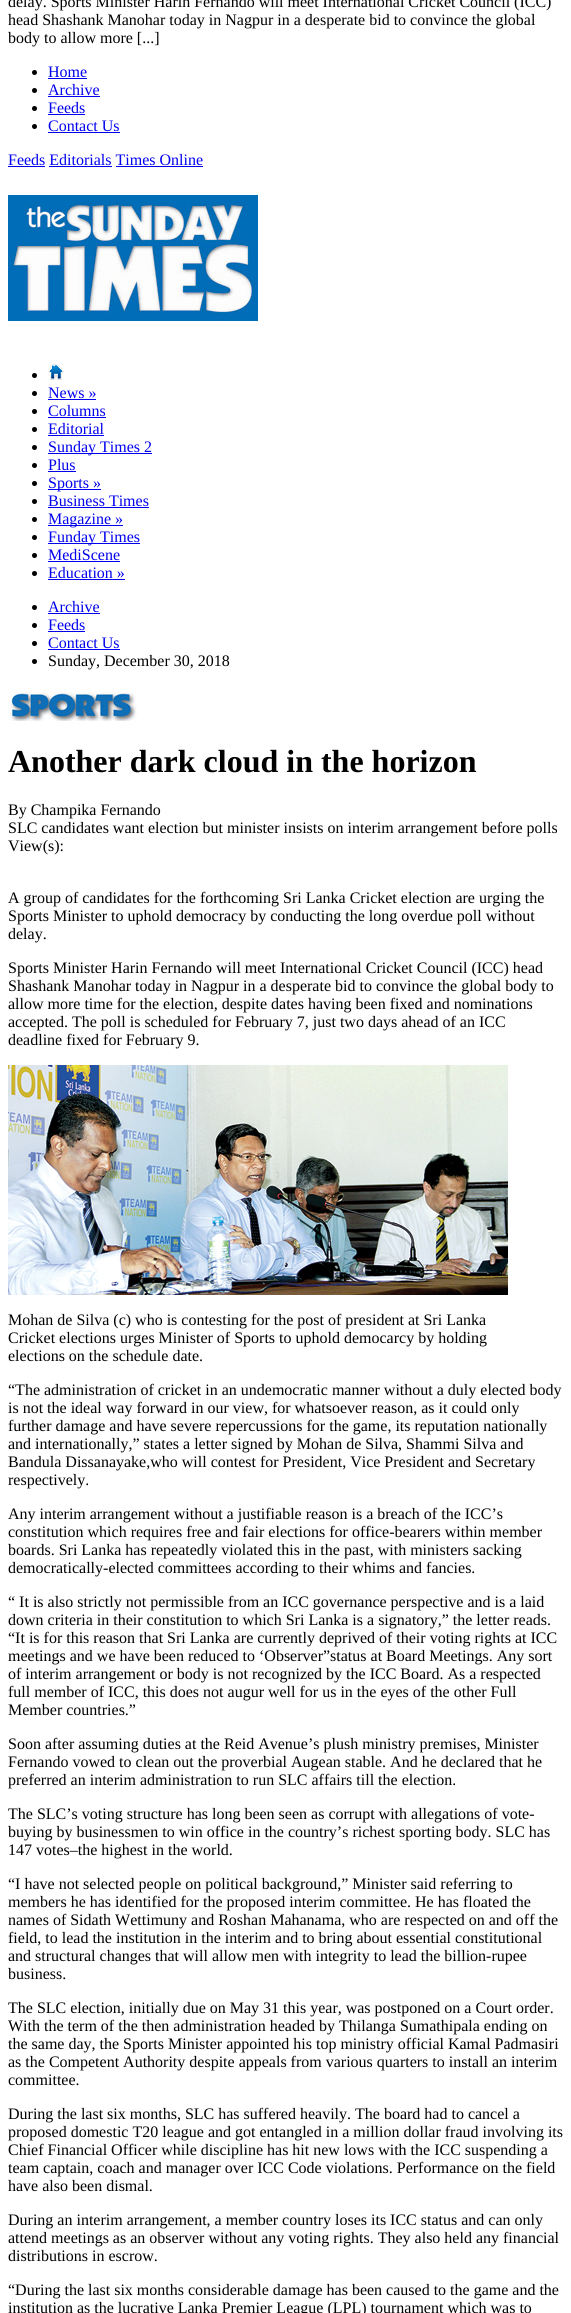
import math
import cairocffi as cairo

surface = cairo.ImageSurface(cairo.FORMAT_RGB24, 571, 2313)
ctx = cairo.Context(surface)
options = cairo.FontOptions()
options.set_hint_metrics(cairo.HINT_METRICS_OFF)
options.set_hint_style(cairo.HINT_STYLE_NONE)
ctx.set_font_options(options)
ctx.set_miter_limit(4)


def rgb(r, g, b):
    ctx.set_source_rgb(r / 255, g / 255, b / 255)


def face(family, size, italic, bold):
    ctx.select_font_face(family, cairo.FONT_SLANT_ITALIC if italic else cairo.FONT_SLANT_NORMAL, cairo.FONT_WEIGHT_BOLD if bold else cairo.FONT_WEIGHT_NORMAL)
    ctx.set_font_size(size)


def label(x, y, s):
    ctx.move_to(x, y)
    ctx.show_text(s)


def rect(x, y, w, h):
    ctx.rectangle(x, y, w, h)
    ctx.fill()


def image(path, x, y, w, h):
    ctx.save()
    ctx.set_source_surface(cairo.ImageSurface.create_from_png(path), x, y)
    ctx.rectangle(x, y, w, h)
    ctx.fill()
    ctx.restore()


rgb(255, 255, 255)
ctx.paint()
face('Liberation Serif', 16, 0, 0)
rgb(0, 0, 0)
label(8, 7, 'delay. Sports Minister Harin Fernando will meet International Cricket Council (ICC)')
label(8, 25, 'head Shashank Manohar today in Nagpur in a desperate bid to convince the global')
label(8, 43, 'body to allow more [...]')
ctx.new_path()
ctx.arc(34.5, 72.5, 2.5, 0, 2 * math.pi)
ctx.fill()
rgb(0, 0, 238)
label(48, 77, 'Home')
rect(48, 78, 39, 1)
rgb(0, 0, 0)
ctx.new_path()
ctx.arc(34.5, 90.5, 2.5, 0, 2 * math.pi)
ctx.fill()
rgb(0, 0, 238)
label(48, 95, 'Archive')
rect(48, 96, 52, 1)
rgb(0, 0, 0)
ctx.new_path()
ctx.arc(34.5, 108.5, 2.5, 0, 2 * math.pi)
ctx.fill()
rgb(0, 0, 238)
label(48, 113, 'Feeds')
rect(48, 114, 37, 1)
rgb(0, 0, 0)
ctx.new_path()
ctx.arc(34.5, 126.5, 2.5, 0, 2 * math.pi)
ctx.fill()
rgb(0, 0, 238)
label(48, 131, 'Contact Us')
rect(48, 132, 72, 1)
label(8, 165, 'Feeds Editorials Times Online')
rect(8, 166, 37, 1)
rect(49, 166, 63, 1)
rect(116, 166, 87, 1)
image('image0.png', 8, 195, 250, 126)
rgb(0, 0, 0)
ctx.arc(34.5, 375.5, 2.5, 0, 2 * math.pi)
ctx.fill()
image('image1.png', 48, 364, 16, 16)
ctx.arc(34.5, 393.5, 2.5, 0, 2 * math.pi)
ctx.fill()
rgb(0, 0, 238)
label(48, 398, 'News »')
rect(48, 399, 48, 1)
rgb(0, 0, 0)
ctx.new_path()
ctx.arc(34.5, 411.5, 2.5, 0, 2 * math.pi)
ctx.fill()
rgb(0, 0, 238)
label(48, 416, 'Columns')
rect(48, 417, 58, 1)
rgb(0, 0, 0)
ctx.new_path()
ctx.arc(34.5, 429.5, 2.5, 0, 2 * math.pi)
ctx.fill()
rgb(0, 0, 238)
label(48, 434, 'Editorial')
rect(48, 435, 56, 1)
rgb(0, 0, 0)
ctx.new_path()
ctx.arc(34.5, 447.5, 2.5, 0, 2 * math.pi)
ctx.fill()
rgb(0, 0, 238)
rect(48, 453, 104, 1)
label(48, 452, 'Sunday Times 2')
rgb(0, 0, 0)
ctx.new_path()
ctx.arc(34.5, 465.5, 2.5, 0, 2 * math.pi)
ctx.fill()
rgb(0, 0, 238)
label(48, 470, 'Plus')
rect(48, 471, 28, 1)
rgb(0, 0, 0)
ctx.new_path()
ctx.arc(34.5, 483.5, 2.5, 0, 2 * math.pi)
ctx.fill()
rgb(0, 0, 238)
rect(48, 489, 53, 1)
label(48, 488, 'Sports »')
rgb(0, 0, 0)
ctx.new_path()
ctx.arc(34.5, 501.5, 2.5, 0, 2 * math.pi)
ctx.fill()
rgb(0, 0, 238)
label(48, 506, 'Business Times')
rect(48, 507, 101, 1)
rgb(0, 0, 0)
ctx.new_path()
ctx.arc(34.5, 519.5, 2.5, 0, 2 * math.pi)
ctx.fill()
rgb(0, 0, 238)
rect(48, 525, 75, 1)
label(48, 524, 'Magazine »')
rgb(0, 0, 0)
ctx.new_path()
ctx.arc(34.5, 537.5, 2.5, 0, 2 * math.pi)
ctx.fill()
rgb(0, 0, 238)
rect(48, 543, 92, 1)
label(48, 542, 'Funday Times')
rgb(0, 0, 0)
ctx.new_path()
ctx.arc(34.5, 555.5, 2.5, 0, 2 * math.pi)
ctx.fill()
rgb(0, 0, 238)
label(48, 560, 'MediScene')
rect(48, 561, 72, 1)
rgb(0, 0, 0)
ctx.new_path()
ctx.arc(34.5, 573.5, 2.5, 0, 2 * math.pi)
ctx.fill()
rgb(0, 0, 238)
label(48, 578, 'Education »')
rect(48, 579, 77, 1)
rgb(0, 0, 0)
ctx.new_path()
ctx.arc(34.5, 607.5, 2.5, 0, 2 * math.pi)
ctx.fill()
rgb(0, 0, 238)
label(48, 612, 'Archive')
rect(48, 613, 52, 1)
rgb(0, 0, 0)
ctx.new_path()
ctx.arc(34.5, 625.5, 2.5, 0, 2 * math.pi)
ctx.fill()
rgb(0, 0, 238)
label(48, 630, 'Feeds')
rect(48, 631, 37, 1)
rgb(0, 0, 0)
ctx.new_path()
ctx.arc(34.5, 643.5, 2.5, 0, 2 * math.pi)
ctx.fill()
rgb(0, 0, 238)
label(48, 648, 'Contact Us')
rect(48, 649, 72, 1)
rgb(0, 0, 0)
ctx.new_path()
ctx.arc(34.5, 661.5, 2.5, 0, 2 * math.pi)
ctx.fill()
label(48, 666, 'Sunday, December 30, 2018')
image('image2.png', 8, 691, 129, 30)
face('Liberation Serif', 32, 0, 1)
label(8, 772, 'Another dark cloud in the horizon')
face('Liberation Serif', 16, 0, 0)
label(8, 815, 'By Champika Fernando')
label(8, 833, 'SLC candidates want election but minister insists on interim arrangement before polls')
label(8, 851, 'View(s):')
label(8, 903, 'A group of candidates for the forthcoming Sri Lanka Cricket election are urging the')
label(8, 921, 'Sports Minister to uphold democracy by conducting the long overdue poll without')
label(8, 939, 'delay.')
label(8, 973, 'Sports Minister Harin Fernando will meet International Cricket Council (ICC) head')
label(8, 991, 'Shashank Manohar today in Nagpur in a desperate bid to convince the global body to')
label(8, 1009, 'allow more time for the election, despite dates having been fixed and nominations')
label(8, 1027, 'accepted. The poll is scheduled for February 7, just two days ahead of an ICC')
label(8, 1045, 'deadline fixed for February 9.')
image('image3.png', 8, 1065, 500, 230)
label(8, 1325, 'Mohan de Silva (c) who is contesting for the post of president at Sri Lanka')
label(8, 1343, 'Cricket elections urges Minister of Sports to uphold democarcy by holding')
label(8, 1361, 'elections on the schedule date.')
label(8, 1395, '“The administration of cricket in an undemocratic manner without a duly elected body')
label(8, 1413, 'is not the ideal way forward in our view, for whatsoever reason, as it could only')
label(8, 1431, 'further damage and have severe repercussions for the game, its reputation nationally')
label(8, 1449, 'and internationally,” states a letter signed by Mohan de Silva, Shammi Silva and')
label(8, 1467, 'Bandula Dissanayake,who will contest for President, Vice President and Secretary')
label(8, 1485, 'respectively.')
label(8, 1519, 'Any interim arrangement without a justifiable reason is a breach of the ICC’s')
label(8, 1537, 'constitution which requires free and fair elections for office-bearers within member')
label(8, 1555, 'boards. Sri Lanka has repeatedly violated this in the past, with ministers sacking')
label(8, 1573, 'democratically-elected committees according to their whims and fancies.')
label(8, 1607, '“ It is also strictly not permissible from an ICC governance perspective and is a laid')
label(8, 1625, 'down criteria in their constitution to which Sri Lanka is a signatory,” the letter reads.')
label(8, 1643, '“It is for this reason that Sri Lanka are currently deprived of their voting rights at ICC')
label(8, 1661, 'meetings and we have been reduced to ‘Observer”status at Board Meetings. Any sort')
label(8, 1679, 'of interim arrangement or body is not recognized by the ICC Board. As a respected')
label(8, 1697, 'full member of ICC, this does not augur well for us in the eyes of the other Full')
label(8, 1715, 'Member countries.”')
label(8, 1749, 'Soon after assuming duties at the Reid Avenue’s plush ministry premises, Minister')
label(8, 1767, 'Fernando vowed to clean out the proverbial Augean stable. And he declared that he')
label(8, 1785, 'preferred an interim administration to run SLC affairs till the election.')
label(8, 1819, 'The SLC’s voting structure has long been seen as corrupt with allegations of vote-')
label(8, 1837, 'buying by businessmen to win office in the country’s richest sporting body. SLC has')
label(8, 1855, '147 votes–the highest in the world.')
label(8, 1889, '“I have not selected people on political background,” Minister said referring to')
label(8, 1907, 'members he has identified for the proposed interim committee. He has floated the')
label(8, 1925, 'names of Sidath Wettimuny and Roshan Mahanama, who are respected on and off the')
label(8, 1943, 'field, to lead the institution in the interim and to bring about essential constitutional')
label(8, 1961, 'and structural changes that will allow men with integrity to lead the billion-rupee')
label(8, 1979, 'business.')
label(8, 2013, 'The SLC election, initially due on May 31 this year, was postponed on a Court order.')
label(8, 2031, 'With the term of the then administration headed by Thilanga Sumathipala ending on')
label(8, 2049, 'the same day, the Sports Minister appointed his top ministry official Kamal Padmasiri')
label(8, 2067, 'as the Competent Authority despite appeals from various quarters to install an interim')
label(8, 2085, 'committee.')
label(8, 2119, 'During the last six months, SLC has suffered heavily. The board had to cancel a')
label(8, 2137, 'proposed domestic T20 league and got entangled in a million dollar fraud involving its')
label(8, 2155, 'Chief Financial Officer while discipline has hit new lows with the ICC suspending a')
label(8, 2173, 'team captain, coach and manager over ICC Code violations. Performance on the field')
label(8, 2191, 'have also been dismal.')
label(8, 2225, 'During an interim arrangement, a member country loses its ICC status and can only')
label(8, 2243, 'attend meetings as an observer without any voting rights. They also held any financial')
label(8, 2261, 'distributions in escrow.')
label(8, 2295, '“During the last six months considerable damage has been caused to the game and the')
label(8, 2313, 'institution as the lucrative Lanka Premier League (LPL) tournament which was to')
surface.write_to_png('render.png')
